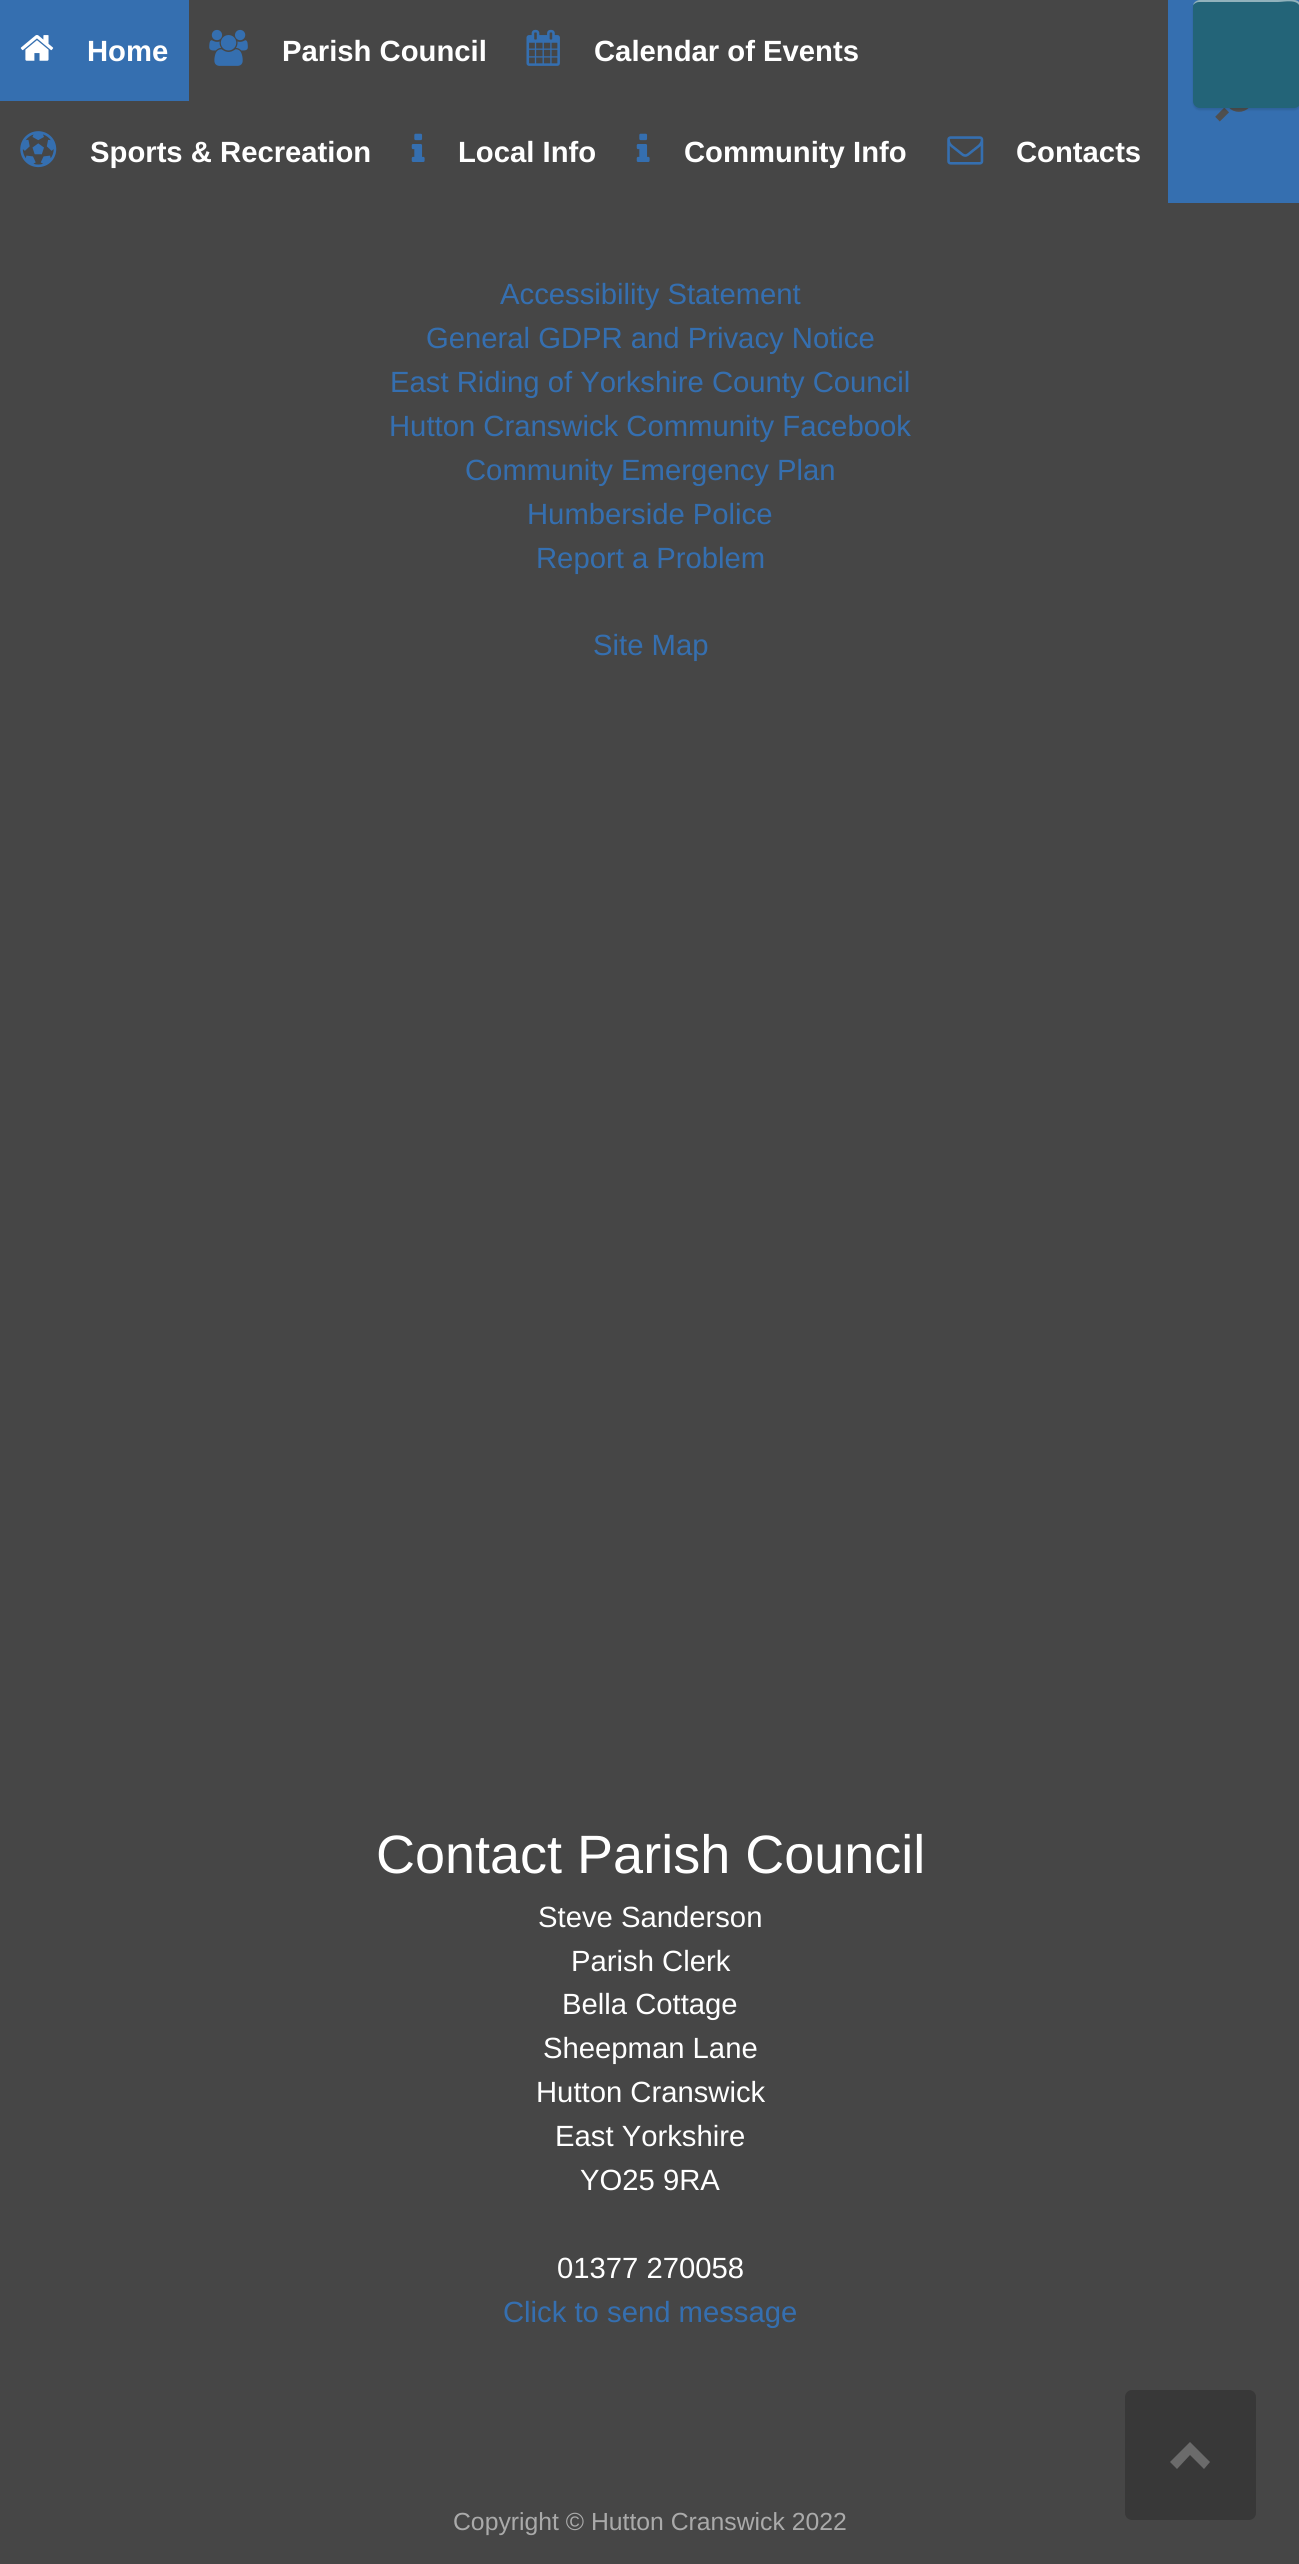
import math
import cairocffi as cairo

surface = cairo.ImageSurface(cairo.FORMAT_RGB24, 1299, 2564)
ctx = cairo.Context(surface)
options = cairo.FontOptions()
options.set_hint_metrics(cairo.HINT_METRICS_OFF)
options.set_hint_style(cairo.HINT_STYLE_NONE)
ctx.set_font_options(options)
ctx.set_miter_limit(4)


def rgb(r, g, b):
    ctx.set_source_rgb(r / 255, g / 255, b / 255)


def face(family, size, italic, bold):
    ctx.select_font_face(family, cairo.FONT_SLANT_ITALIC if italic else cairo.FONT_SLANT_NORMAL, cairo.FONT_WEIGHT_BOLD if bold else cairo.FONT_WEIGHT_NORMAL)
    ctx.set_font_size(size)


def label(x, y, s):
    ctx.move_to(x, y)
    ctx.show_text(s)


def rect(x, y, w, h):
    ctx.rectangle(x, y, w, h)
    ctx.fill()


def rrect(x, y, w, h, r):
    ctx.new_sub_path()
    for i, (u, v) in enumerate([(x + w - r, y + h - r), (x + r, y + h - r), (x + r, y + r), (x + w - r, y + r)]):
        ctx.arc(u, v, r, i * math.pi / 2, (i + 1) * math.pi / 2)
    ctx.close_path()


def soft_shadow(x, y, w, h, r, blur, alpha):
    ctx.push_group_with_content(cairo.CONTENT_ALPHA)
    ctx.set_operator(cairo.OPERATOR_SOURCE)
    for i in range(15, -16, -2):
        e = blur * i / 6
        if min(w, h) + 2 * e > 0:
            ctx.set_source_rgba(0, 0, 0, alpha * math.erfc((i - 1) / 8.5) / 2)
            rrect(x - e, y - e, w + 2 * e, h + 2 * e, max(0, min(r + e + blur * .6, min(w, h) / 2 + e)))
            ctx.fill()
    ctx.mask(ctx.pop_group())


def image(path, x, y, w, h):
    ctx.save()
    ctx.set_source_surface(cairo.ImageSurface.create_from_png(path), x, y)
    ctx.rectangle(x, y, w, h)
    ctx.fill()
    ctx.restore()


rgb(70, 70, 70)
ctx.paint()
rgb(53, 111, 176)
rect(0, 0, 189, 101)
image('image0.png', 20, 35, 34, 26)
face('Liberation Sans', 29.25, 0, 1)
rgb(255, 255, 255)
label(87, 61, 'Home')
image('image1.png', 209, 29, 39, 37)
label(282, 61, 'Parish Council')
image('image2.png', 526, 29, 34, 37)
label(594, 61, 'Calendar of Events')
image('image3.png', 20, 131, 37, 37)
label(90, 162, 'Sports & Recreation')
image('image4.png', 411, 133, 14, 29)
label(458, 162, 'Local Info')
image('image4.png', 636, 133, 14, 29)
label(684, 162, 'Community Info')
image('image5.png', 947, 136, 37, 29)
label(1016, 162, 'Contacts')
rgb(53, 111, 176)
rect(1168, 0, 131, 203)
image('image6.png', 1215, 108, 34, 14)
face('Liberation Sans', 29.25, 0, 0)
label(500, 304, 'Accessibility Statement')
label(426, 348, 'General GDPR and Privacy Notice')
label(390, 392, 'East Riding of Yorkshire County Council')
label(389, 436, 'Hutton Cranswick Community Facebook')
label(465, 480, 'Community Emergency Plan')
label(527, 524, 'Humberside Police')
label(536, 568, 'Report a Problem')
label(593, 655, 'Site Map')
face('Liberation Sans', 54, 0, 0)
rgb(255, 255, 255)
label(376, 1873, 'Contact Parish Council')
face('Liberation Sans', 29.25, 0, 0)
label(538, 1927, 'Steve Sanderson')
label(571, 1971, 'Parish Clerk')
label(562, 2014, 'Bella Cottage')
label(543, 2058, 'Sheepman Lane')
label(536, 2102, 'Hutton Cranswick')
label(555, 2146, 'East Yorkshire')
label(580, 2190, 'YO25 9RA')
label(557, 2278, '01377 270058')
rgb(53, 111, 176)
label(503, 2322, 'Click to send message')
face('Liberation Sans', 24.75, 0, 0)
rgb(170, 170, 170)
label(453, 2530, 'Copyright © Hutton Cranswick 2022')
rgb(0, 0, 0)
soft_shadow(1193, 2, 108, 108, 7, 1, 0.12)
rgb(35, 100, 120)
rrect(1193, 0, 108, 108, 7)
ctx.fill()
ctx.set_source_rgba(1, 1, 1, 0.5)
ctx.new_path()
ctx.move_to(1199, 2)
ctx.line_to(1278, 2)
ctx.curve_to(1284, 2, 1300, -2, 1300, 9)
ctx.line_to(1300, 105)
ctx.curve_to(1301, 104, 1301, 102, 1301, 101)
ctx.line_to(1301, 7)
ctx.curve_to(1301, 3, 1298, 0, 1294, 0)
ctx.line_to(1200, 0)
ctx.curve_to(1197, 0, 1194, 2, 1193, 5)
ctx.curve_to(1195, 3, 1197, 2, 1199, 2)
ctx.close_path()
ctx.fill()
rgb(56, 56, 56)
rrect(1125, 2390, 131, 130, 7)
ctx.fill()
rgb(107, 107, 107)
ctx.new_path()
ctx.move_to(1210, 2462)
ctx.line_to(1190, 2442)
ctx.line_to(1170, 2462)
ctx.line_to(1177, 2469)
ctx.line_to(1190, 2455)
ctx.line_to(1204, 2469)
ctx.close_path()
ctx.fill()
surface.write_to_png('render.png')
